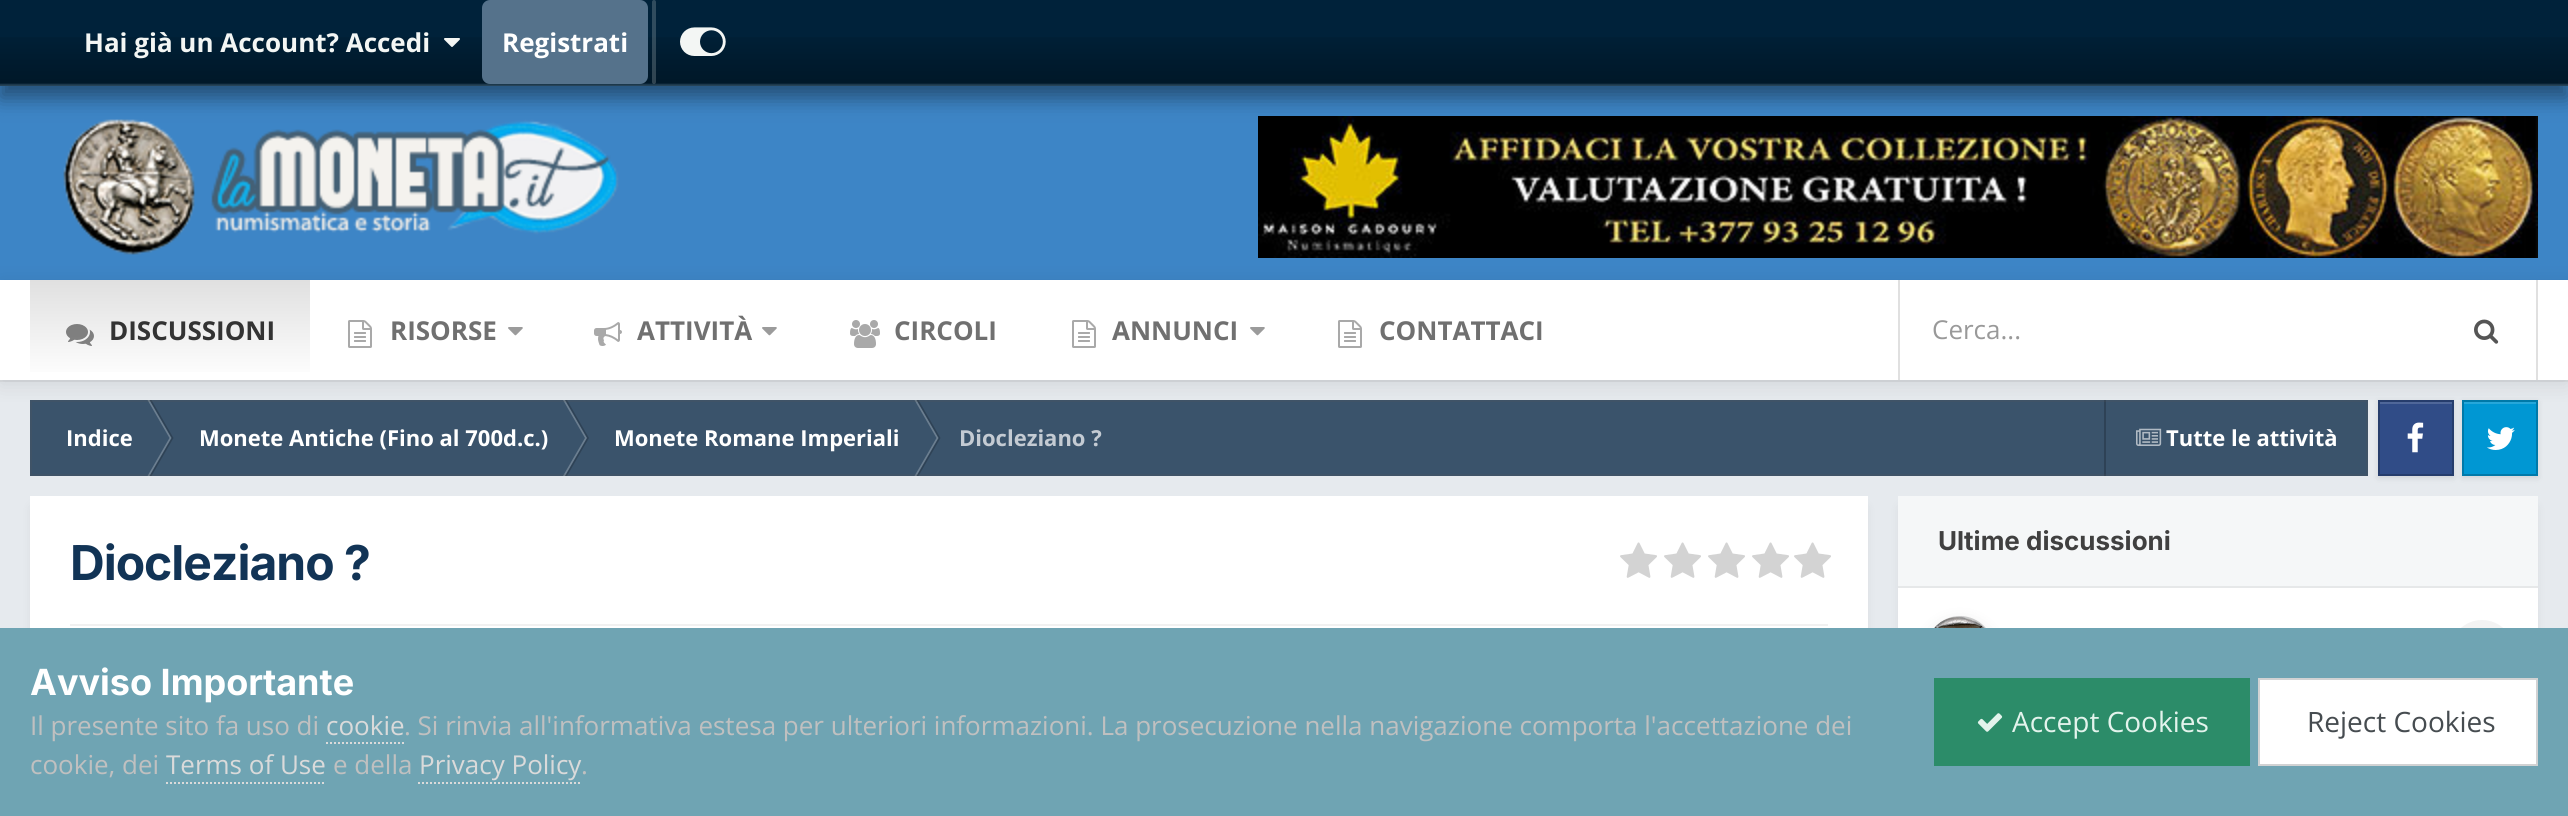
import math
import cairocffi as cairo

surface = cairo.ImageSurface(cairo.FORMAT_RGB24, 2568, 816)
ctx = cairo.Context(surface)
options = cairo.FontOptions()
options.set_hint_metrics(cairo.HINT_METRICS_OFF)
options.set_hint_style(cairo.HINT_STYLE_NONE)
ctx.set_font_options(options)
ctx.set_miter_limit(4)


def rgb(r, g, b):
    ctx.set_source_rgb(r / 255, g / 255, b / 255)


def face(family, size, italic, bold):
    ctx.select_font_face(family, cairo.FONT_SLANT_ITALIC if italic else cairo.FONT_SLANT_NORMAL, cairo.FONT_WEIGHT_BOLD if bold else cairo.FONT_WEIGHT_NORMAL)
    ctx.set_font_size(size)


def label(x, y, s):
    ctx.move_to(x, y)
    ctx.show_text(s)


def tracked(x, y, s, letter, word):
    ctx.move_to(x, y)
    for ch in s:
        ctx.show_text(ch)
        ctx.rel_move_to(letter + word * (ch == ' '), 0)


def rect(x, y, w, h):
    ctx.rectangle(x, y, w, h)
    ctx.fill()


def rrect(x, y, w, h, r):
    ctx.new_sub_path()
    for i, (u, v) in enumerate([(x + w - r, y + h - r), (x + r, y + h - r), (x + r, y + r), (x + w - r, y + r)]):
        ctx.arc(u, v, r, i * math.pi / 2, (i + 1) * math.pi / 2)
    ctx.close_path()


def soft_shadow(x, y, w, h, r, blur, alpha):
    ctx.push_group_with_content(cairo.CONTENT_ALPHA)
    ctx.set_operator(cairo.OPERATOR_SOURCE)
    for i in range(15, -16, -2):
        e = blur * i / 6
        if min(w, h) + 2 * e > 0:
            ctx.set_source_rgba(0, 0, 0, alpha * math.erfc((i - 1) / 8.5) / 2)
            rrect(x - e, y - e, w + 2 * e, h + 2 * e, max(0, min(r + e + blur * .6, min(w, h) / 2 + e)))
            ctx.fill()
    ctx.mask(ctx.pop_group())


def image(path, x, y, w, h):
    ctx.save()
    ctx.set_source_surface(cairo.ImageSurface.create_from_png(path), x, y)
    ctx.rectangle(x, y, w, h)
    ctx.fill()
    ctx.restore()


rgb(61, 133, 198)
ctx.paint()
image('image3.png', 63, 119, 556, 136)
image('image4.png', 1258, 116, 1280, 142)
rgb(0, 0, 0)
soft_shadow(0, 12, 2568, 86, 0, 10, 0.4)
rgb(0, 34, 58)
rect(0, 0, 2568, 86)
image('image0.png', 0, 37, 2568, 49)
face('Open Sans', 26, 0, 1)
rgb(243, 246, 244)
label(84, 52, 'Hai già un Account? Accedi')
image('image1.png', 444, 38, 16, 9)
rgb(85, 114, 139)
rrect(482, 0, 166, 84, 8)
ctx.fill()
rgb(255, 255, 255)
label(502, 52, 'Registrati')
ctx.set_source_rgba(0.953, 0.965, 0.957, 0.2)
rrect(652, 0, 4, 84, 2)
ctx.fill()
image('image2.png', 680, 27, 46, 29)
rgb(230, 234, 238)
rect(0, 382, 2568, 246)
rgb(219, 222, 226)
rect(0, 380, 2568, 2)
rgb(58, 83, 107)
rect(30, 400, 2338, 76)
rgb(107, 126, 144)
ctx.new_path()
ctx.move_to(147.5, 400)
ctx.line_to(149.5, 400)
ctx.line_to(171.5, 438)
ctx.line_to(169.5, 438)
ctx.close_path()
ctx.fill()
ctx.set_source_rgba(0, 0, 0, 0.2)
ctx.new_path()
ctx.move_to(149.5, 400)
ctx.line_to(151.5, 400)
ctx.line_to(173.5, 438)
ctx.line_to(171.5, 438)
ctx.close_path()
ctx.fill()
rgb(107, 126, 144)
ctx.new_path()
ctx.move_to(147.5, 476)
ctx.line_to(149.5, 476)
ctx.line_to(171.5, 438)
ctx.line_to(169.5, 438)
ctx.close_path()
ctx.fill()
ctx.set_source_rgba(0, 0, 0, 0.2)
ctx.new_path()
ctx.move_to(149.5, 476)
ctx.line_to(151.5, 476)
ctx.line_to(173.5, 438)
ctx.line_to(171.5, 438)
ctx.close_path()
ctx.fill()
rgb(107, 126, 144)
ctx.new_path()
ctx.move_to(563, 400)
ctx.line_to(565, 400)
ctx.line_to(587, 438)
ctx.line_to(585, 438)
ctx.close_path()
ctx.fill()
ctx.set_source_rgba(0, 0, 0, 0.2)
ctx.new_path()
ctx.move_to(565, 400)
ctx.line_to(567, 400)
ctx.line_to(589, 438)
ctx.line_to(587, 438)
ctx.close_path()
ctx.fill()
rgb(107, 126, 144)
ctx.new_path()
ctx.move_to(563, 476)
ctx.line_to(565, 476)
ctx.line_to(587, 438)
ctx.line_to(585, 438)
ctx.close_path()
ctx.fill()
ctx.set_source_rgba(0, 0, 0, 0.2)
ctx.new_path()
ctx.move_to(565, 476)
ctx.line_to(567, 476)
ctx.line_to(589, 438)
ctx.line_to(587, 438)
ctx.close_path()
ctx.fill()
rgb(107, 126, 144)
ctx.new_path()
ctx.move_to(914.5, 400)
ctx.line_to(916.5, 400)
ctx.line_to(938.5, 438)
ctx.line_to(936.5, 438)
ctx.close_path()
ctx.fill()
ctx.set_source_rgba(0, 0, 0, 0.2)
ctx.new_path()
ctx.move_to(916.5, 400)
ctx.line_to(918.5, 400)
ctx.line_to(940.5, 438)
ctx.line_to(938.5, 438)
ctx.close_path()
ctx.fill()
rgb(107, 126, 144)
ctx.new_path()
ctx.move_to(914.5, 476)
ctx.line_to(916.5, 476)
ctx.line_to(938.5, 438)
ctx.line_to(936.5, 438)
ctx.close_path()
ctx.fill()
ctx.set_source_rgba(0, 0, 0, 0.2)
ctx.new_path()
ctx.move_to(916.5, 476)
ctx.line_to(918.5, 476)
ctx.line_to(940.5, 438)
ctx.line_to(938.5, 438)
ctx.close_path()
ctx.fill()
rgb(46, 66, 86)
rect(2104, 400, 2, 76)
image('image11.png', 2136, 428, 26, 18)
ctx.rectangle(31, 401, 2336, 74)
ctx.set_source_rgba(0.333, 0.333, 0.333, 0.2)
ctx.stroke()
rgb(0, 0, 0)
soft_shadow(2378, 402, 76, 76, 0, 3, 0.1)
rgb(48, 76, 135)
rect(2380, 404, 72, 70)
rgb(79, 103, 153)
rect(2380, 402, 72, 2)
image('image12.png', 2407, 422, 17, 31)
ctx.rectangle(2379, 401, 74, 74)
rgb(38, 61, 108)
ctx.stroke()
rgb(0, 0, 0)
soft_shadow(2462, 402, 76, 76, 0, 3, 0.1)
rgb(0, 151, 211)
rect(2464, 404, 72, 70)
rgb(38, 167, 218)
rect(2464, 402, 72, 2)
image('image13.png', 2487, 427, 28, 23)
ctx.rectangle(2463, 401, 74, 74)
rgb(0, 121, 169)
ctx.stroke()
rgb(0, 0, 0)
soft_shadow(0, 284, 2568, 100, 0, 10, 0.1)
rgb(255, 255, 255)
rect(0, 280, 2568, 100)
gradient = cairo.LinearGradient(170, 280, 170, 380)
gradient.add_color_stop_rgba(0, 0.878, 0.878, 0.878, 1)
gradient.add_color_stop_rgba(1, 1, 1, 1, 1)
ctx.set_source(gradient)
rect(30, 280, 280, 92)
image('image5.png', 66, 324, 28, 22)
rgb(51, 51, 51)
label(109, 340, 'DISCUSSIONI')
image('image6.png', 348, 320, 24, 28)
rgb(112, 112, 112)
label(390, 340, 'RISORSE')
image('image7.png', 508, 327, 15, 9)
image('image8.png', 594, 322, 28, 24)
label(637, 340, 'ATTIVITÀ')
image('image7.png', 762, 327, 15, 9)
image('image9.png', 850, 320, 30, 28)
label(894, 340, 'CIRCOLI')
image('image6.png', 1072, 320, 24, 28)
label(1112, 340, 'ANNUNCI')
image('image7.png', 1250, 327, 15, 9)
image('image6.png', 1338, 320, 24, 28)
label(1379, 340, 'CONTATTACI')
rgb(224, 224, 224)
rect(2536, 280, 2, 100)
rect(1898, 280, 2, 100)
face('Open Sans', 26, 0, 0)
rgb(153, 153, 153)
label(1932, 339, 'Cerca...')
image('image10.png', 2474, 319, 25, 25)
face('Open Sans', 22, 0, 1)
rgb(255, 255, 255)
label(66, 446, 'Indice')
label(199, 446, 'Monete Antiche (Fino al 700d.c.)')
label(614, 446, 'Monete Romane Imperiali')
rgb(196, 203, 211)
label(959, 446, 'Diocleziano ?')
rgb(255, 255, 255)
label(2166, 446, 'Tutte le attività')
rgb(0, 0, 0)
soft_shadow(1902, 508, 632, 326, 0, 6, 0.1)
rgb(255, 255, 255)
rect(1898, 588, 640, 40)
rgb(245, 247, 248)
rect(1898, 496, 640, 90)
rgb(230, 232, 233)
rect(1898, 586, 640, 2)
face('Inter', 26, 0, 1)
rgb(64, 64, 64)
label(1938, 550, 'Ultime discussioni')
image('image14.png', 1934, 616, 52, 12)
ctx.save()
ctx.set_fill_rule(cairo.FILL_RULE_EVEN_ODD)
ctx.new_path()
ctx.move_to(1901, 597)
ctx.line_to(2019, 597)
ctx.line_to(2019, 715)
ctx.line_to(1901, 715)
ctx.close_path()
ctx.move_to(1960, 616)
ctx.curve_to(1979, 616, 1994, 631, 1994, 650)
ctx.curve_to(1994, 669, 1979, 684, 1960, 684)
ctx.curve_to(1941, 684, 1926, 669, 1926, 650)
ctx.curve_to(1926, 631, 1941, 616, 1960, 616)
ctx.close_path()
ctx.clip()
rgb(0, 0, 0)
soft_shadow(1926, 622, 68, 68, 34, 8, 0.1)
ctx.restore()
ctx.arc(1960, 650, 33, 0, 2 * math.pi)
ctx.set_source_rgba(0.333, 0.333, 0.333, 0.3)
ctx.stroke()
rgb(243, 243, 243)
ctx.arc(2482, 652, 32, 0, 2 * math.pi)
ctx.fill()
rgb(0, 0, 0)
soft_shadow(34, 508, 1830, 280, 0, 6, 0.1)
rgb(255, 255, 255)
rect(30, 496, 1838, 132)
face('Inter', 48, 0, 1)
rgb(18, 52, 86)
tracked(70, 580, 'Diocleziano ?', -1, 0)
image('image15.png', 1620, 542, 37, 36)
image('image15.png', 1664, 542, 37, 36)
image('image15.png', 1708, 542, 37, 36)
image('image15.png', 1752, 542, 37, 36)
image('image15.png', 1794, 542, 37, 36)
rgb(241, 241, 241)
rect(70, 624, 1758, 2)
rgb(111, 164, 179)
rect(0, 628, 2568, 188)
face('Inter', 36, 0, 1)
rgb(255, 255, 255)
label(30, 695, 'Avviso Importante')
face('Open Sans', 26, 0, 0)
rgb(192, 192, 192)
label(30, 735, 'Il presente sito fa uso di')
rgb(218, 218, 218)
label(326, 735, 'cookie')
ctx.new_path()
ctx.move_to(326, 743)
ctx.line_to(404, 743)
ctx.set_dash([2, 2])
ctx.stroke()
rgb(192, 192, 192)
label(404, 735, '. Si rinvia all\'informativa estesa per ulteriori informazioni. La prosecuzione nella navigazione comporta l\'accettazione dei')
label(30, 774, 'cookie, dei')
rgb(218, 218, 218)
label(166, 774, 'Terms of Use')
ctx.new_path()
ctx.move_to(166, 783)
ctx.line_to(326, 783)
ctx.stroke()
rgb(192, 192, 192)
label(333, 774, 'e della')
rgb(218, 218, 218)
label(419, 774, 'Privacy Policy')
ctx.new_path()
ctx.move_to(418, 783)
ctx.line_to(582, 783)
ctx.stroke()
rgb(192, 192, 192)
label(581, 774, '.')
rgb(44, 140, 105)
rect(1934, 678, 316, 88)
image('image16.png', 1977, 713, 26, 19)
face('Open Sans', 28, 0, 0)
rgb(227, 243, 236)
label(2012, 732, 'Accept Cookies')
rgb(255, 255, 255)
ctx.rectangle(2259, 679, 278, 86)
ctx.fill_preserve()
rgb(209, 210, 211)
ctx.set_dash([])
ctx.stroke()
rgb(70, 76, 80)
label(2307, 732, 'Reject Cookies')
surface.write_to_png('render.png')
